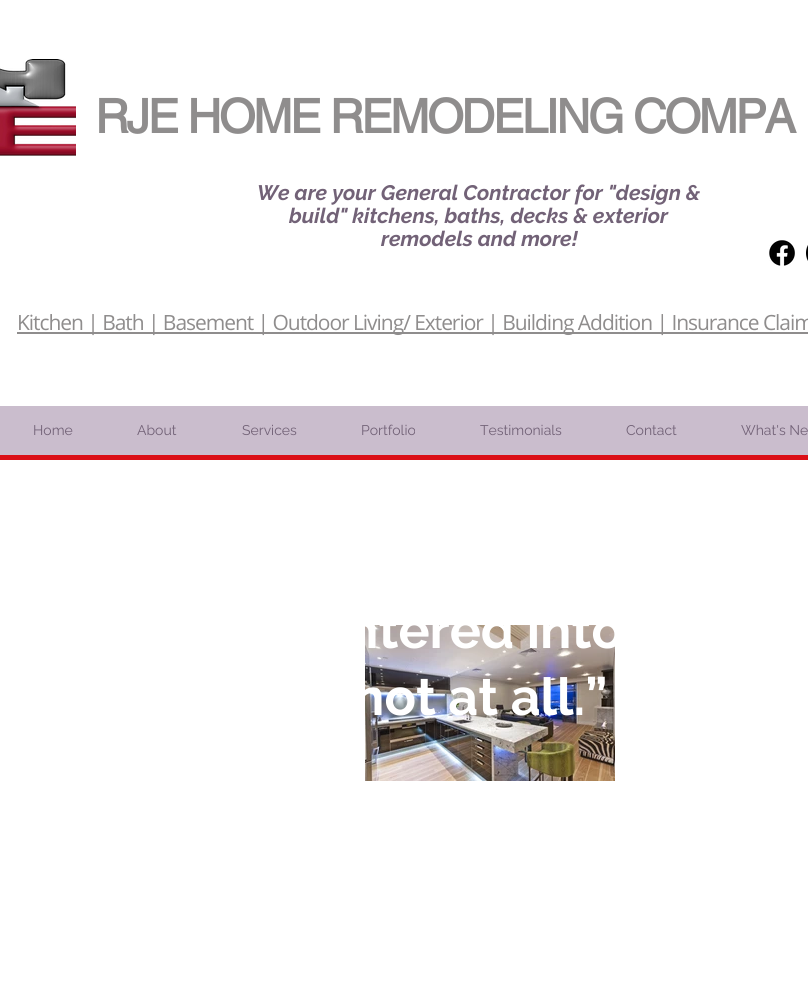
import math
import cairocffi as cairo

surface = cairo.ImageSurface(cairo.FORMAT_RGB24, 808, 981)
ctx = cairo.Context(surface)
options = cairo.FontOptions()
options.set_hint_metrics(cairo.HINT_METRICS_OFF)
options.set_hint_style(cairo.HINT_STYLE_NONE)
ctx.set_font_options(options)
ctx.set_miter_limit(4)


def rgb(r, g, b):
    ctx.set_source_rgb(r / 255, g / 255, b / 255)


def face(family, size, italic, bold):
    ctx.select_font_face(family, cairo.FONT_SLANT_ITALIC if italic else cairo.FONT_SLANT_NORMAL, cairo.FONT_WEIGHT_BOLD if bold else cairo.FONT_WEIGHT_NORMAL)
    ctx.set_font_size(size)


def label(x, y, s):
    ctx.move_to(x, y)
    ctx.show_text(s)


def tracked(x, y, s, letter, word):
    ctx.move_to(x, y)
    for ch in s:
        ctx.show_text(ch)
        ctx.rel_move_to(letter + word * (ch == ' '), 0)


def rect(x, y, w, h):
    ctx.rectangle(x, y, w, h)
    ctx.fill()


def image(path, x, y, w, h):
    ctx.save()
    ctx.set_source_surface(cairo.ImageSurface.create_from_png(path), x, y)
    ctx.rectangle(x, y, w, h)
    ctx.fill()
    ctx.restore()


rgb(255, 255, 255)
ctx.paint()
image('image0.png', 0, 59, 76, 97)
face('helvetica', 47, 0, 1)
rgb(143, 141, 141)
tracked(95, 133, 'RJE HOME REMODELING COMPA', -2.35, 0)
face('Raleway', 21, 1, 1)
rgb(114, 98, 119)
label(257, 200, 'We are your General Contractor for "design &')
label(289, 223, 'build" kitchens, baths, decks & exterior')
label(381, 246, 'remodels and more!')
image('image1.png', 769, 240, 26, 26)
image('image2.png', 806, 245, 2, 16)
rgb(143, 141, 141)
rect(17, 332, 791, 2)
face('Open Sans', 21, 0, 0)
tracked(17, 330, 'Kitchen | Bath | Basement | Outdoor Living/ Exterior | Building Addition | Insurance Claim', -1.05, 0)
rgb(202, 189, 205)
rect(0, 406, 808, 49)
face('Raleway', 14, 0, 0)
rgb(114, 98, 119)
label(33, 435, 'Home')
label(137, 435, 'About')
label(242, 435, 'Services')
label(361, 435, 'Portfolio')
label(480, 435, 'Testimonials')
label(626, 435, 'Contact')
label(741, 435, 'What\'s Ne')
rgb(219, 15, 23)
rect(0, 455, 808, 5)
image('image3.png', 365, 625, 250, 156)
face('Raleway', 52, 0, 1)
rgb(255, 255, 255)
label(347, 648, 'ntered into')
label(353, 715, 'not at all.”')
surface.write_to_png('render.png')
